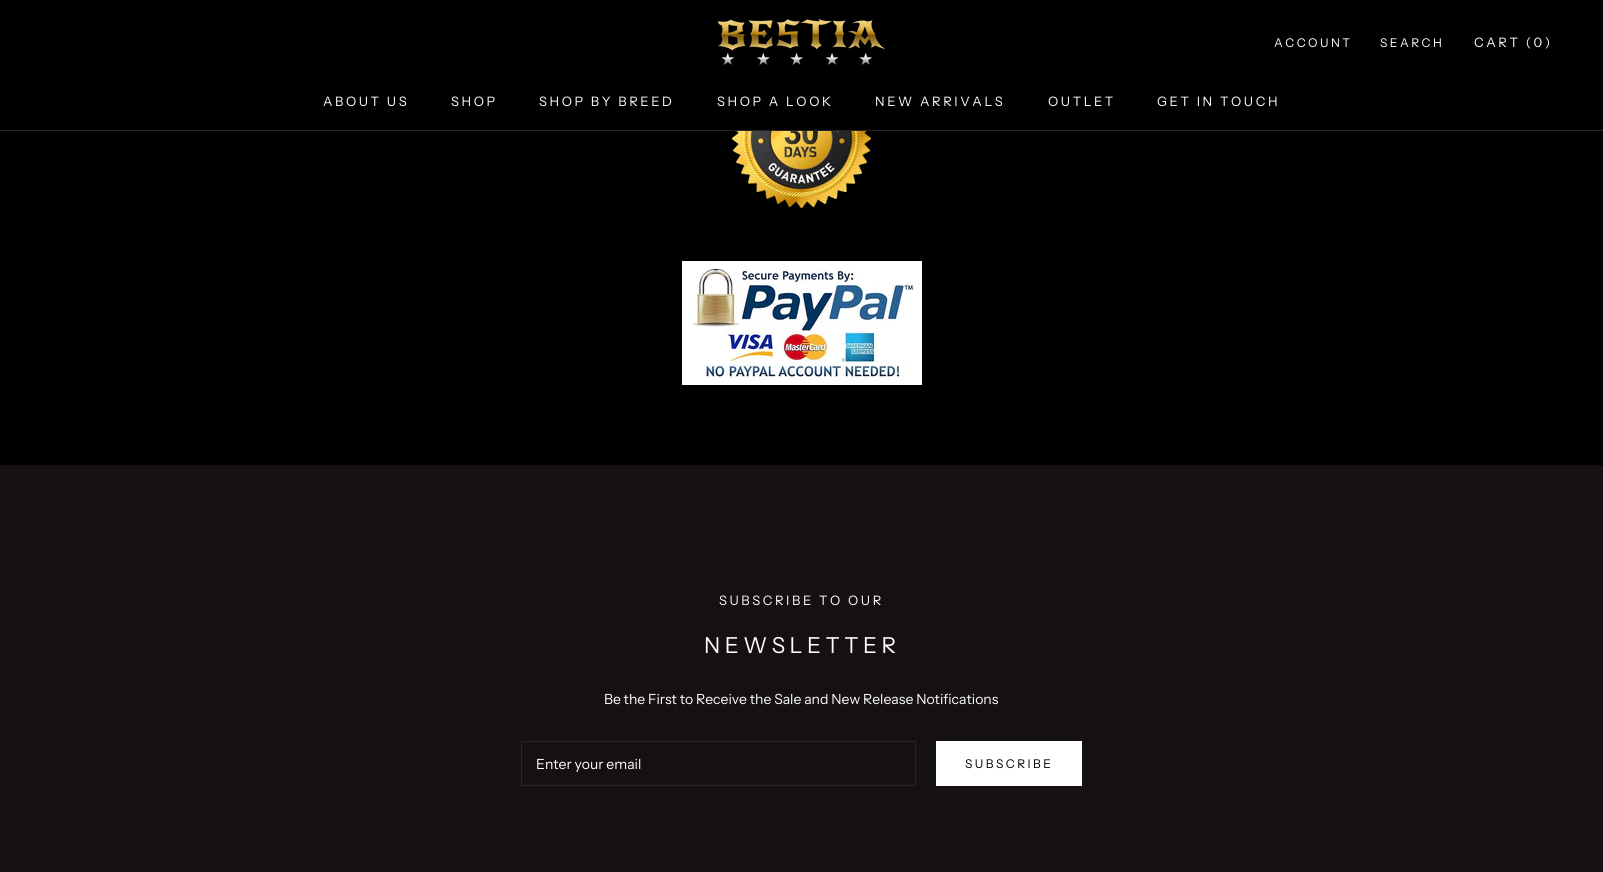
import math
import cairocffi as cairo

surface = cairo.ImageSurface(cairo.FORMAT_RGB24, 1603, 872)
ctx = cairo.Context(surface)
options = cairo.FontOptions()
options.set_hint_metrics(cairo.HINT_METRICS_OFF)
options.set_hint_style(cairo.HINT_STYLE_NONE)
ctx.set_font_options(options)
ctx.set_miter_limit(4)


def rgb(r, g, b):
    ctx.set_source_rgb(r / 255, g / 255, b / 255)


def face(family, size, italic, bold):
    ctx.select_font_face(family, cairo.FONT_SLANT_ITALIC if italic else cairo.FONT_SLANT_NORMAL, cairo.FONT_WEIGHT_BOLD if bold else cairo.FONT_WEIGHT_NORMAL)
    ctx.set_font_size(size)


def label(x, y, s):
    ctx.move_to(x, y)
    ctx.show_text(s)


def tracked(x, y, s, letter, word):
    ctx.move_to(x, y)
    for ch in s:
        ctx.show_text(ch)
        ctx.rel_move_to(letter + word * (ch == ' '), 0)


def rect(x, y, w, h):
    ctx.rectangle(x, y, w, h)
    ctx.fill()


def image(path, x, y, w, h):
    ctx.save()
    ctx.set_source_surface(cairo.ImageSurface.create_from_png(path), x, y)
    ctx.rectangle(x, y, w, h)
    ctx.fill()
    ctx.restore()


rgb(0, 0, 0)
ctx.paint()
rgb(38, 38, 38)
rect(0, 130, 1603, 1)
image('image0.png', 717, 19, 169, 46)
face('Instrument Sans', 12, 0, 0)
rgb(255, 255, 255)
tracked(1274, 47, 'ACCOUNT', 2.5, 0)
tracked(1380, 47, 'SEARCH', 2.5, 0)
face('Instrument Sans', 13, 0, 0)
tracked(1474, 47, 'CART (0)', 2.6, 0)
tracked(323, 106, 'ABOUT US', 2.6, 0)
tracked(451, 106, 'SHOP', 2.6, 0)
tracked(539, 106, 'SHOP BY BREED', 2.6, 0)
tracked(717, 106, 'SHOP A LOOK', 2.6, 0)
tracked(875, 106, 'NEW ARRIVALS', 2.6, 0)
tracked(1048, 106, 'OUTLET', 2.6, 0)
tracked(1157, 106, 'GET IN TOUCH', 2.6, 0)
image('image1.png', 732, 131, 140, 78)
image('image2.png', 682, 261, 240, 124)
rgb(21, 16, 17)
rect(0, 465, 1603, 407)
rgb(255, 255, 255)
tracked(719, 605, 'SUBSCRIBE TO OUR', 2.6, 0)
face('Instrument Sans', 22, 0, 0)
tracked(704, 653, 'NEWSLETTER', 4.5, 0)
face('Instrument Sans', 14, 0, 0)
label(604, 704, 'Be the First to Receive the Sale and New Release Notifications')
ctx.rectangle(521.5, 741.5, 394, 44)
rgb(38, 38, 38)
ctx.set_line_width(1)
ctx.stroke()
rgb(255, 255, 255)
label(536, 769, 'Enter your email')
ctx.rectangle(936.5, 741.5, 145, 44)
ctx.stroke()
rect(937, 742, 144, 43)
face('Instrument Sans', 12, 0, 0)
rgb(0, 0, 0)
tracked(965, 768, 'SUBSCRIBE', 2.5, 0)
surface.write_to_png('render.png')
